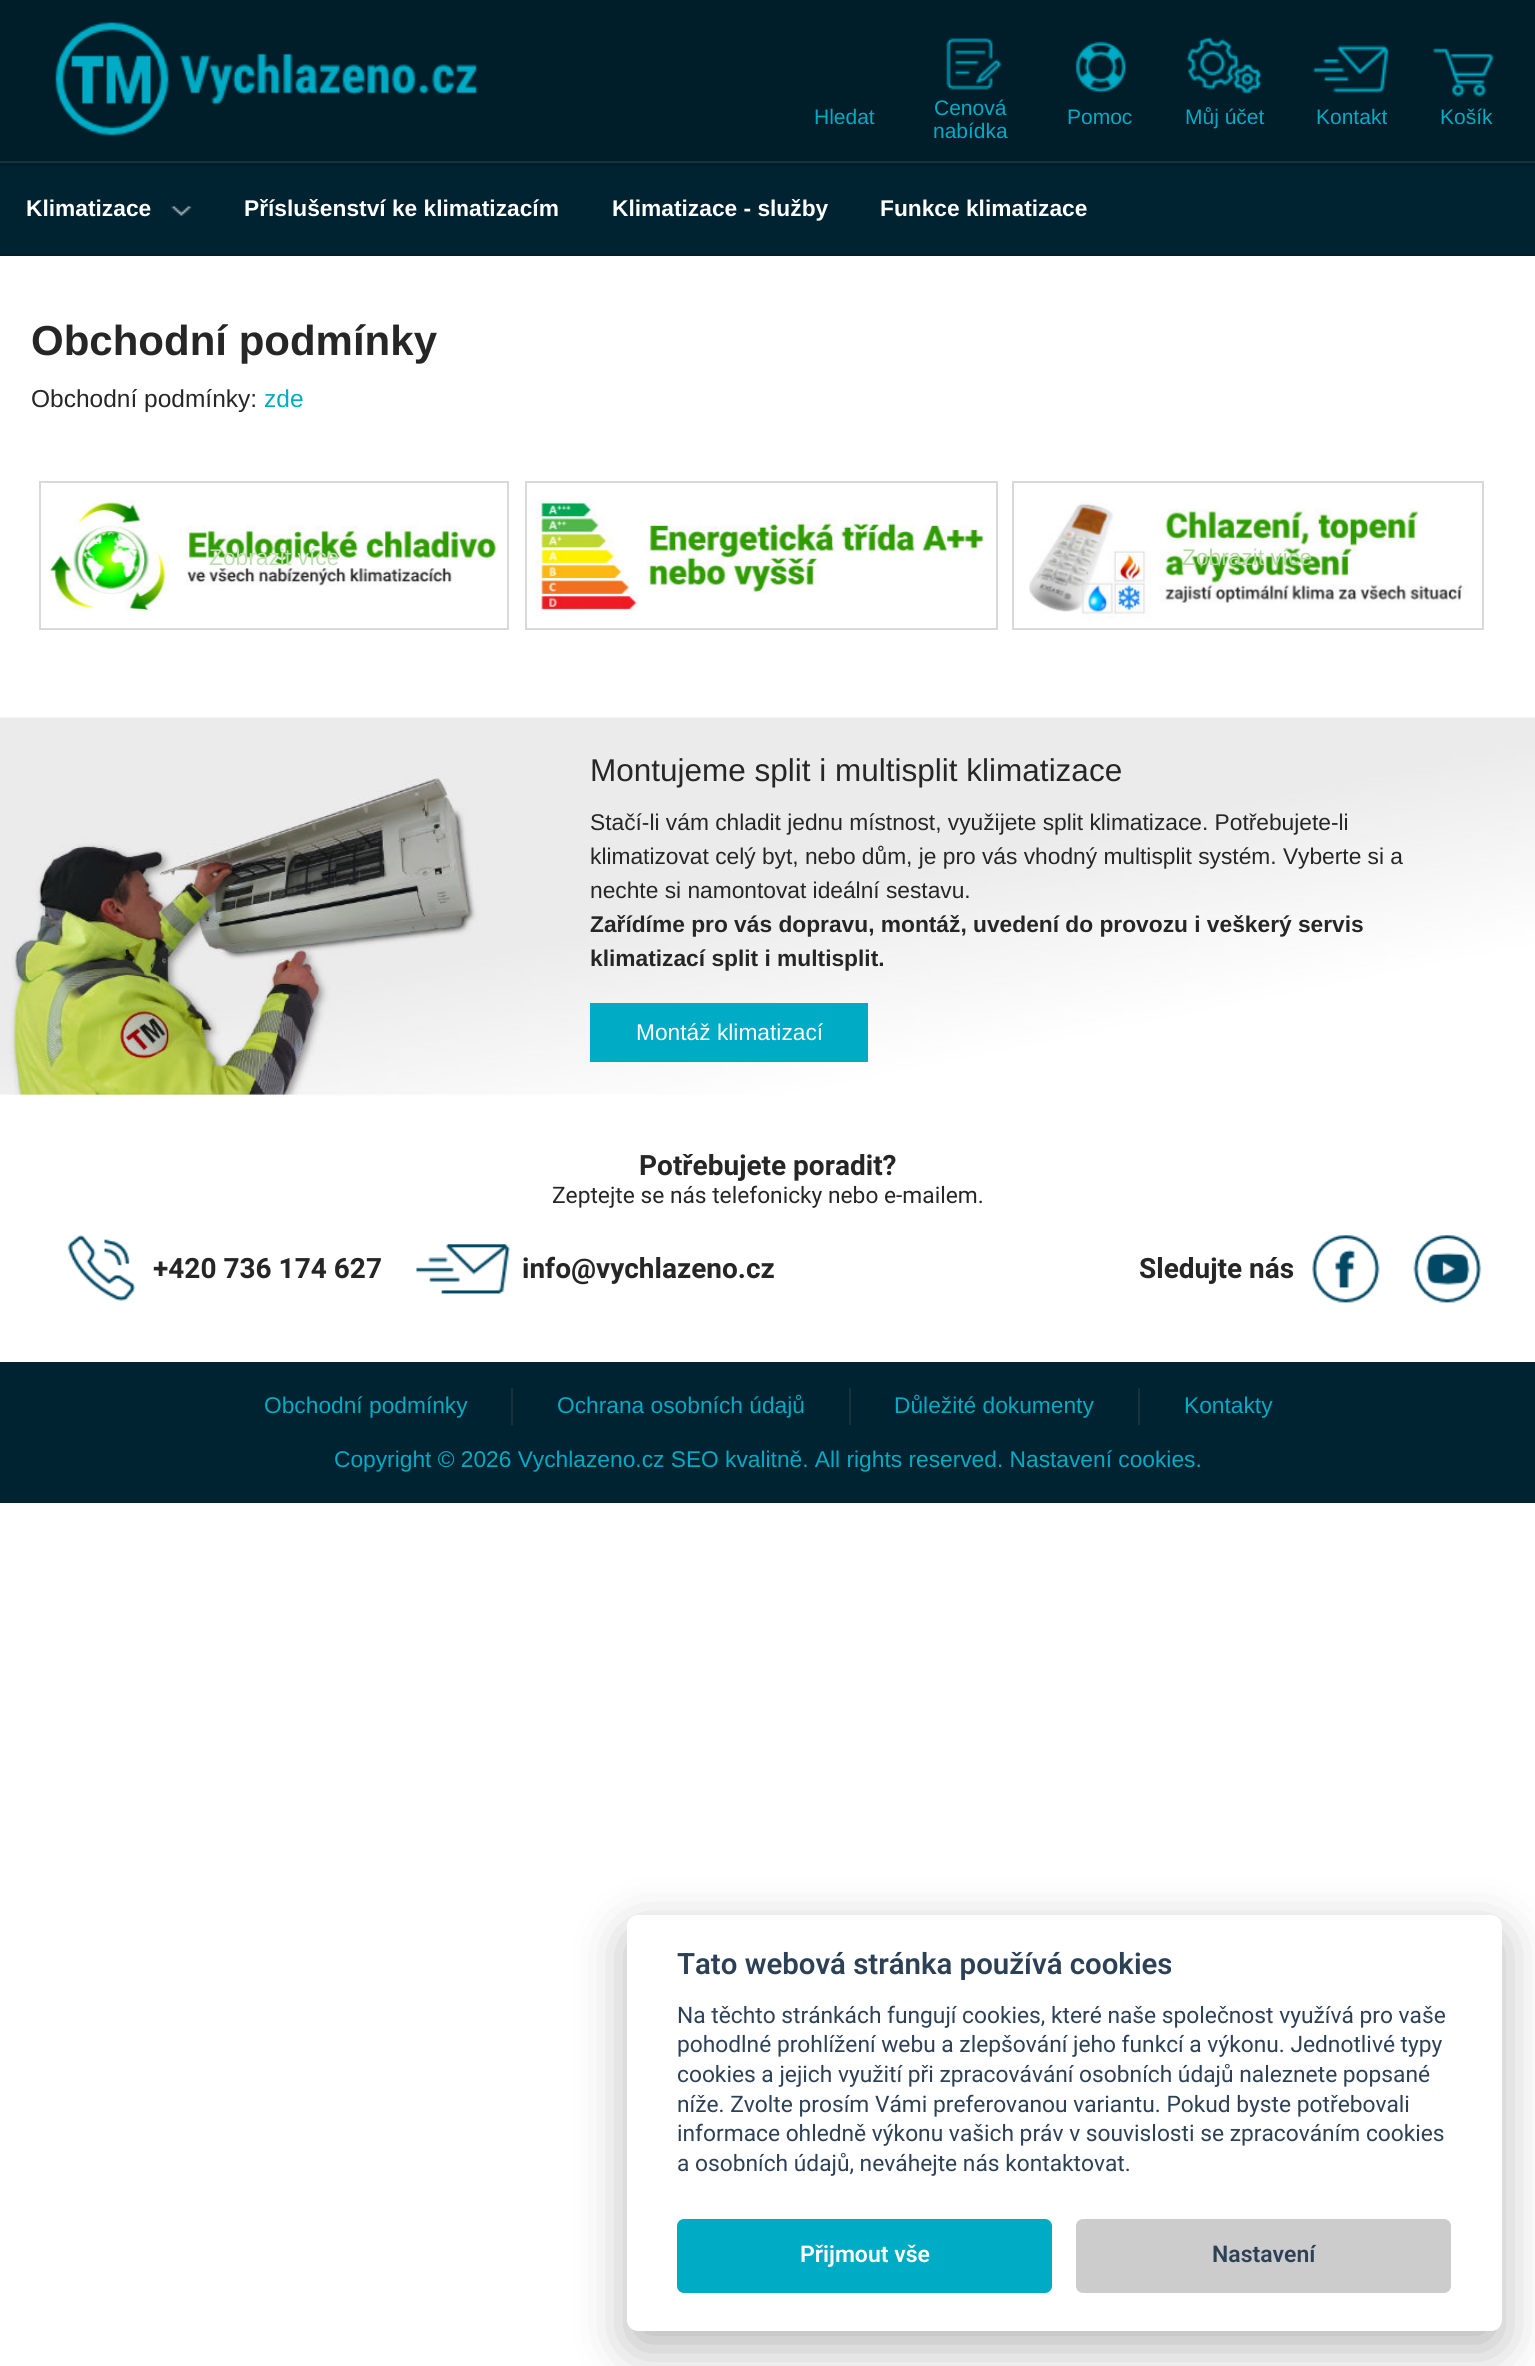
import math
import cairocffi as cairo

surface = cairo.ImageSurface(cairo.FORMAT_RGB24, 1535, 2366)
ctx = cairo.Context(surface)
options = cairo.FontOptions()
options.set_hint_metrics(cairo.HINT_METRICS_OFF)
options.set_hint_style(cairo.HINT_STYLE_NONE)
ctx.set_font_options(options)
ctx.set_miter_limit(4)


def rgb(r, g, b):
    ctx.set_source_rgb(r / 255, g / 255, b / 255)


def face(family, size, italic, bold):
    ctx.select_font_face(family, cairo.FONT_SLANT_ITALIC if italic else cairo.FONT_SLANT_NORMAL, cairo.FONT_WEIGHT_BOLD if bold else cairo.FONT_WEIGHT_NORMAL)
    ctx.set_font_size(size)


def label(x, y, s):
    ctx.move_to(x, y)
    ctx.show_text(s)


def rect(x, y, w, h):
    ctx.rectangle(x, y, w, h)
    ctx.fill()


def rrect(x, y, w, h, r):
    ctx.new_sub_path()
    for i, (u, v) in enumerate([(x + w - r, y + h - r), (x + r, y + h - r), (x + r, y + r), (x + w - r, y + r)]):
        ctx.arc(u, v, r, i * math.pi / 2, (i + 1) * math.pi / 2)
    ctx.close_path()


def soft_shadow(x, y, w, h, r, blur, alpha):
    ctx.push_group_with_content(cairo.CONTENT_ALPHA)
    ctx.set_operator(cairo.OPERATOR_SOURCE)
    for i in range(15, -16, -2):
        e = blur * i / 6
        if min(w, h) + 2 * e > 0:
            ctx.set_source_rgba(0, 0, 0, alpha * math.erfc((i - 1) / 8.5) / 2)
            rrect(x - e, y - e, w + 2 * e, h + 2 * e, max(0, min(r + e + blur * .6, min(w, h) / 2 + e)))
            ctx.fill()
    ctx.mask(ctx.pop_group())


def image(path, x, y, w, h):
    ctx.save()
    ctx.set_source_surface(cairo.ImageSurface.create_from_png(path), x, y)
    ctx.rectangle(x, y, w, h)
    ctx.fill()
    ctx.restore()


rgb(255, 255, 255)
ctx.paint()
rgb(0, 30, 42)
rect(0, 0, 1535, 256)
image('image0.png', 55, 21, 114, 115)
image('image1.png', 180, 53, 298, 53)
face('Liberation Sans', 21, 0, 0)
rgb(0, 171, 197)
label(814, 124, 'Hledat')
image('image2.png', 946, 38, 56, 52)
label(934, 115, 'Cenová')
label(933, 138, 'nabídka')
image('image3.png', 1075, 41, 51, 52)
label(1067, 124, 'Pomoc')
image('image4.png', 1186, 36, 76, 58)
label(1185, 124, 'Můj účet')
image('image5.png', 1312, 45, 77, 49)
label(1316, 124, 'Kontakt')
image('image6.png', 1432, 48, 62, 49)
label(1440, 124, 'Košík')
rgb(24, 50, 59)
rect(0, 161, 1535, 2)
rgb(0, 35, 49)
rect(0, 166, 1535, 88)
face('Liberation Sans', 22.75, 0, 1)
rgb(255, 255, 255)
label(26, 216, 'Klimatizace')
image('image7.png', 171, 206, 21, 10)
label(244, 216, 'Příslušenství ke klimatizacím')
label(612, 216, 'Klimatizace - služby')
label(880, 216, 'Funkce klimatizace')
face('Liberation Sans', 42, 0, 1)
rgb(38, 38, 38)
label(31, 355, 'Obchodní podmínky')
face('Liberation Sans', 24.5, 0, 0)
label(31, 407, 'Obchodní podmínky:')
rgb(0, 171, 197)
label(264, 407, 'zde')
ctx.rectangle(40, 482, 468, 147)
rgb(217, 217, 217)
ctx.stroke()
image('image8.png', 49, 500, 450, 111)
face('Liberation Sans', 22.75, 0, 0)
rgb(189, 223, 175)
label(209, 565, 'Zobrazit více')
ctx.rectangle(526, 482, 471, 147)
rgb(217, 217, 217)
ctx.stroke()
image('image9.png', 535, 500, 449, 111)
ctx.rectangle(1013, 482, 470, 147)
ctx.stroke()
image('image10.png', 1029, 501, 439, 118)
rgb(180, 218, 163)
label(1182, 565, 'Zobrazit více')
image('image11.png', 0, 717, 1535, 380)
face('Liberation Sans', 31.5, 0, 0)
rgb(38, 38, 38)
label(590, 781, 'Montujeme split i multisplit klimatizace')
face('Liberation Sans', 22.75, 0, 0)
label(590, 830, 'Stačí-li vám chladit jednu místnost, využijete split klimatizace. Potřebujete-li')
label(590, 864, 'klimatizovat celý byt, nebo dům, je pro vás vhodný multisplit systém. Vyberte si a')
label(590, 898, 'nechte si namontovat ideální sestavu.')
face('Liberation Sans', 22.75, 0, 1)
label(590, 932, 'Zařídíme pro vás dopravu, montáž, uvedení do provozu i veškerý servis')
label(590, 966, 'klimatizací split i multisplit.')
rgb(0, 171, 197)
rect(590, 1003, 278, 59)
face('Liberation Sans', 22.75, 0, 0)
rgb(255, 255, 255)
label(636, 1040, 'Montáž klimatizací')
face('Roboto', 28, 0, 1)
rgb(38, 38, 38)
label(639, 1175, 'Potřebujete poradit?')
face('Roboto', 22.75, 0, 0)
label(552, 1203, 'Zeptejte se nás telefonicky nebo e-mailem.')
image('image12.png', 67, 1235, 69, 67)
face('Roboto', 28, 0, 1)
label(153, 1278, '+420 736 174 627')
image('image13.png', 416, 1244, 94, 50)
label(522, 1278, 'info@vychlazeno.cz')
label(1139, 1278, 'Sledujte nás')
image('image14.png', 1312, 1235, 68, 68)
image('image15.png', 1413, 1235, 69, 68)
rgb(0, 35, 49)
rect(0, 1362, 1535, 141)
rgb(24, 50, 59)
rect(511, 1388, 2, 37)
face('Liberation Sans', 22.75, 0, 0)
rgb(0, 171, 197)
label(264, 1413, 'Obchodní podmínky')
rgb(24, 50, 59)
rect(849, 1388, 2, 37)
rgb(0, 171, 197)
label(557, 1413, 'Ochrana osobních údajů')
rgb(24, 50, 59)
rect(1138, 1388, 2, 37)
rgb(0, 171, 197)
label(894, 1413, 'Důležité dokumenty')
label(1184, 1413, 'Kontakty')
label(334, 1467, 'Copyright © 2026 Vychlazeno.cz SEO kvalitně. All rights reserved. Nastavení cookies.')
rgb(2, 2, 3)
soft_shadow(627, 1932, 875, 417, 11, 26, 0.28)
rgb(255, 255, 255)
rrect(627, 1915, 875, 416, 11)
ctx.fill()
face('Roboto SemiBold', 29.4, 0, 0)
rgb(45, 65, 86)
label(677, 1974, 'Tato webová stránka používá cookies')
face('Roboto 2', 22.75, 0, 0)
label(677, 2023, 'Na těchto stránkách fungují cookies, které naše společnost využívá pro vaše')
label(677, 2052, 'pohodlné prohlížení webu a zlepšování jeho funkcí a výkonu. Jednotlivé typy')
label(677, 2082, 'cookies a jejich využití při zpracovávání osobních údajů naleznete popsané')
label(677, 2112, 'níže. Zvolte prosím Vámi preferovanou variantu. Pokud byste potřebovali')
label(677, 2141, 'informace ohledně výkonu vašich práv v souvislosti se zpracováním cookies')
label(677, 2171, 'a osobních údajů, neváhejte nás kontaktovat.')
rgb(0, 171, 197)
rrect(677, 2219, 375, 74, 7)
ctx.fill()
face('Roboto SemiBold', 23, 0, 0)
rgb(255, 255, 255)
label(800, 2262, 'Přijmout vše')
rgb(204, 204, 204)
rrect(1076, 2219, 375, 74, 7)
ctx.fill()
rgb(45, 65, 86)
label(1212, 2262, 'Nastavení')
surface.write_to_png('render.png')
